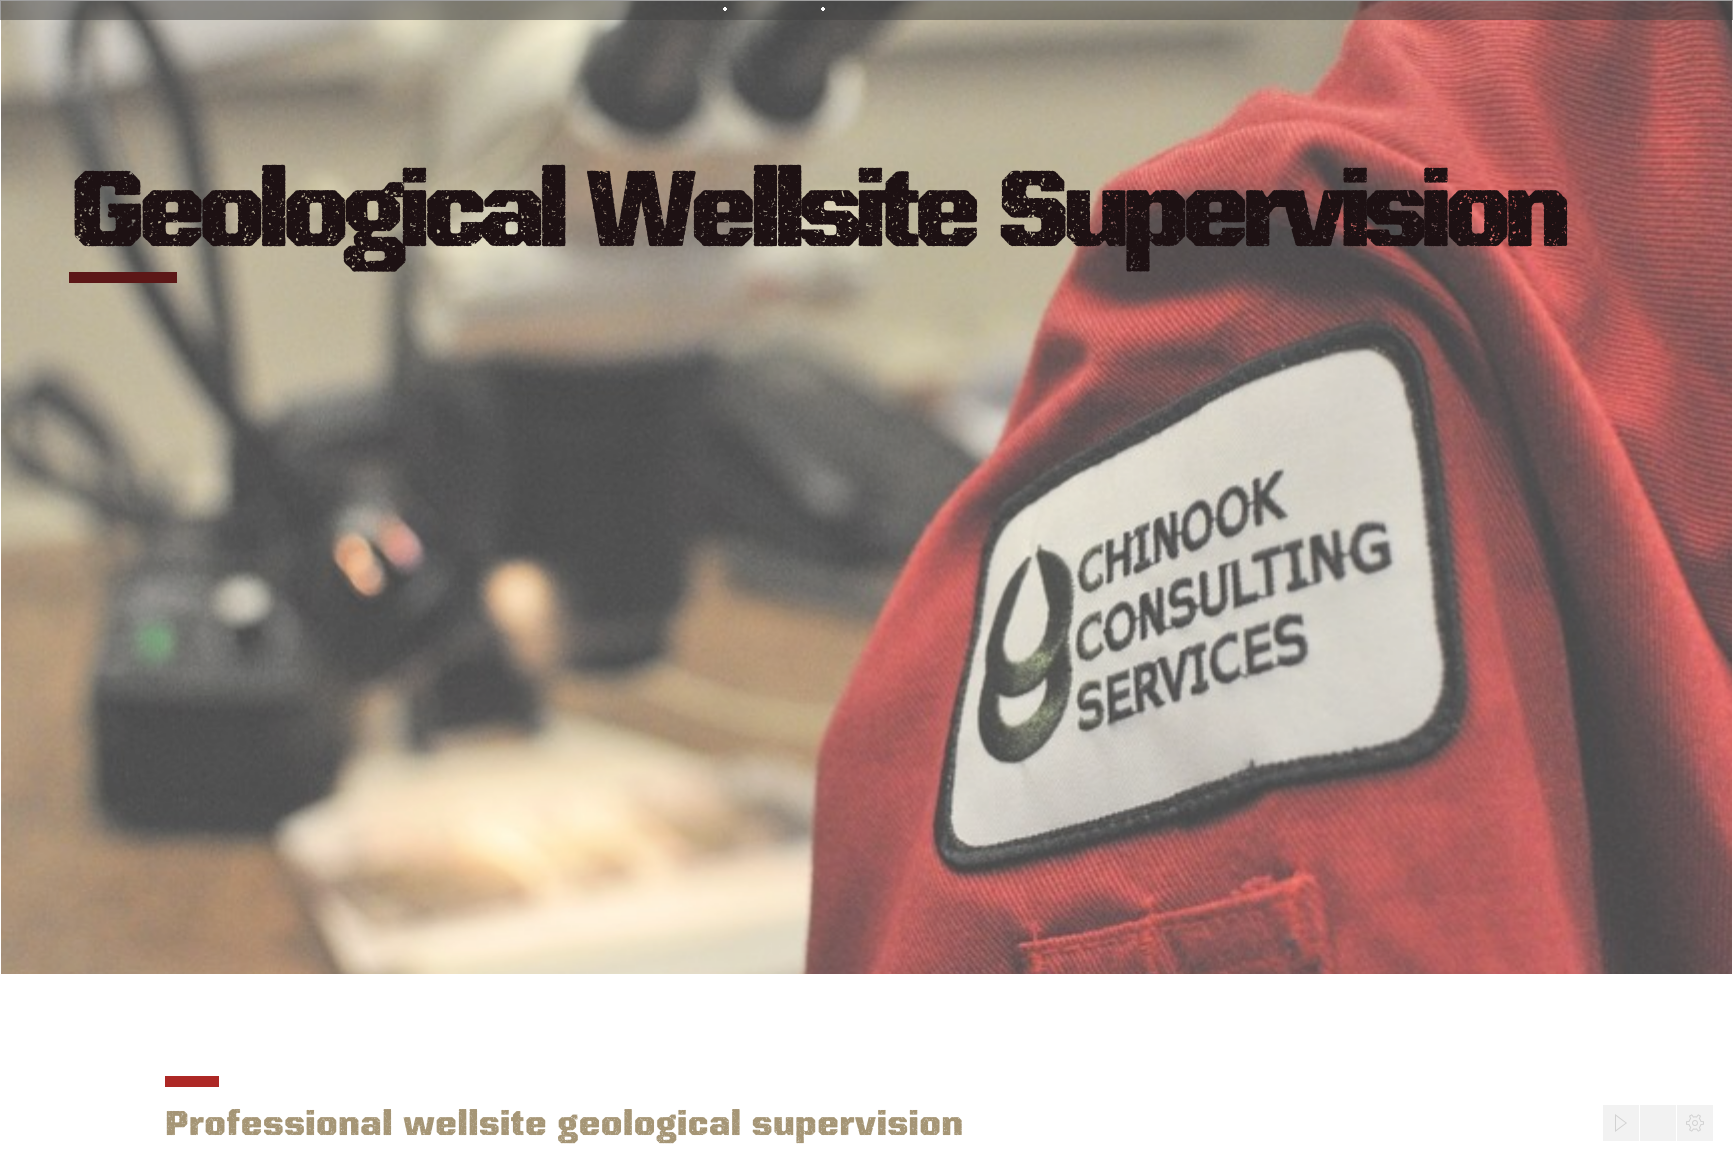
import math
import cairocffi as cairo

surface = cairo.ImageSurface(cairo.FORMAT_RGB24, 1733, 1162)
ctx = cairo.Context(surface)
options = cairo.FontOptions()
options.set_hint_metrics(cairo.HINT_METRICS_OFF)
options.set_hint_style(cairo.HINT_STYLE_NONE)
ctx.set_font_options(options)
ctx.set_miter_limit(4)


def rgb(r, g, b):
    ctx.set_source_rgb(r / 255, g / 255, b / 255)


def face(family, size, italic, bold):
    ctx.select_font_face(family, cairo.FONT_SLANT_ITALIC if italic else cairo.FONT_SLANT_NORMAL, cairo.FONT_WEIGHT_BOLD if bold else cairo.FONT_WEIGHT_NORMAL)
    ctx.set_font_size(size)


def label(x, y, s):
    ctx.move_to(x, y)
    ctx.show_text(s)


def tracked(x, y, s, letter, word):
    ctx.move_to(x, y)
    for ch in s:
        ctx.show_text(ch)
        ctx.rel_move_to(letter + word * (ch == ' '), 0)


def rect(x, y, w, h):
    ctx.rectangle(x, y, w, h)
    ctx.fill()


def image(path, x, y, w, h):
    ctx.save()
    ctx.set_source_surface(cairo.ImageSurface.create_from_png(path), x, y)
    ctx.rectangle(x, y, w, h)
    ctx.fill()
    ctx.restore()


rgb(255, 255, 255)
ctx.paint()
image('image1.png', 1, 1, 1731, 973)
ctx.set_source_rgba(0.251, 0.251, 0.251, 0.5)
rect(0, 0, 1733, 20)
image('image0.png', 723, 7, 102, 4)
face('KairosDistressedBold', 101.5, 0, 1)
rgb(29, 17, 19)
tracked(69, 246, 'Geological Wellsite Supervision', -9.4, 0)
rgb(92, 23, 23)
rect(69, 272, 108, 11)
rgb(173, 40, 37)
rect(165, 1076, 54, 11)
face('KairosDistressedBold', 32.5, 0, 1)
rgb(165, 149, 117)
label(165, 1135, 'Professional wellsite geological supervision')
rgb(242, 242, 242)
rect(1603, 1105, 36, 36)
rgb(210, 210, 210)
ctx.new_path()
ctx.move_to(1615, 1114)
ctx.line_to(1627, 1123)
ctx.line_to(1615, 1132)
ctx.close_path()
ctx.move_to(1616, 1116)
ctx.line_to(1616, 1130)
ctx.line_to(1625.5, 1123)
ctx.close_path()
ctx.fill()
rgb(242, 242, 242)
rect(1640, 1105, 36, 36)
rect(1677, 1105, 36, 36)
image('image2.png', 1686, 1114, 18, 18)
surface.write_to_png('render.png')
